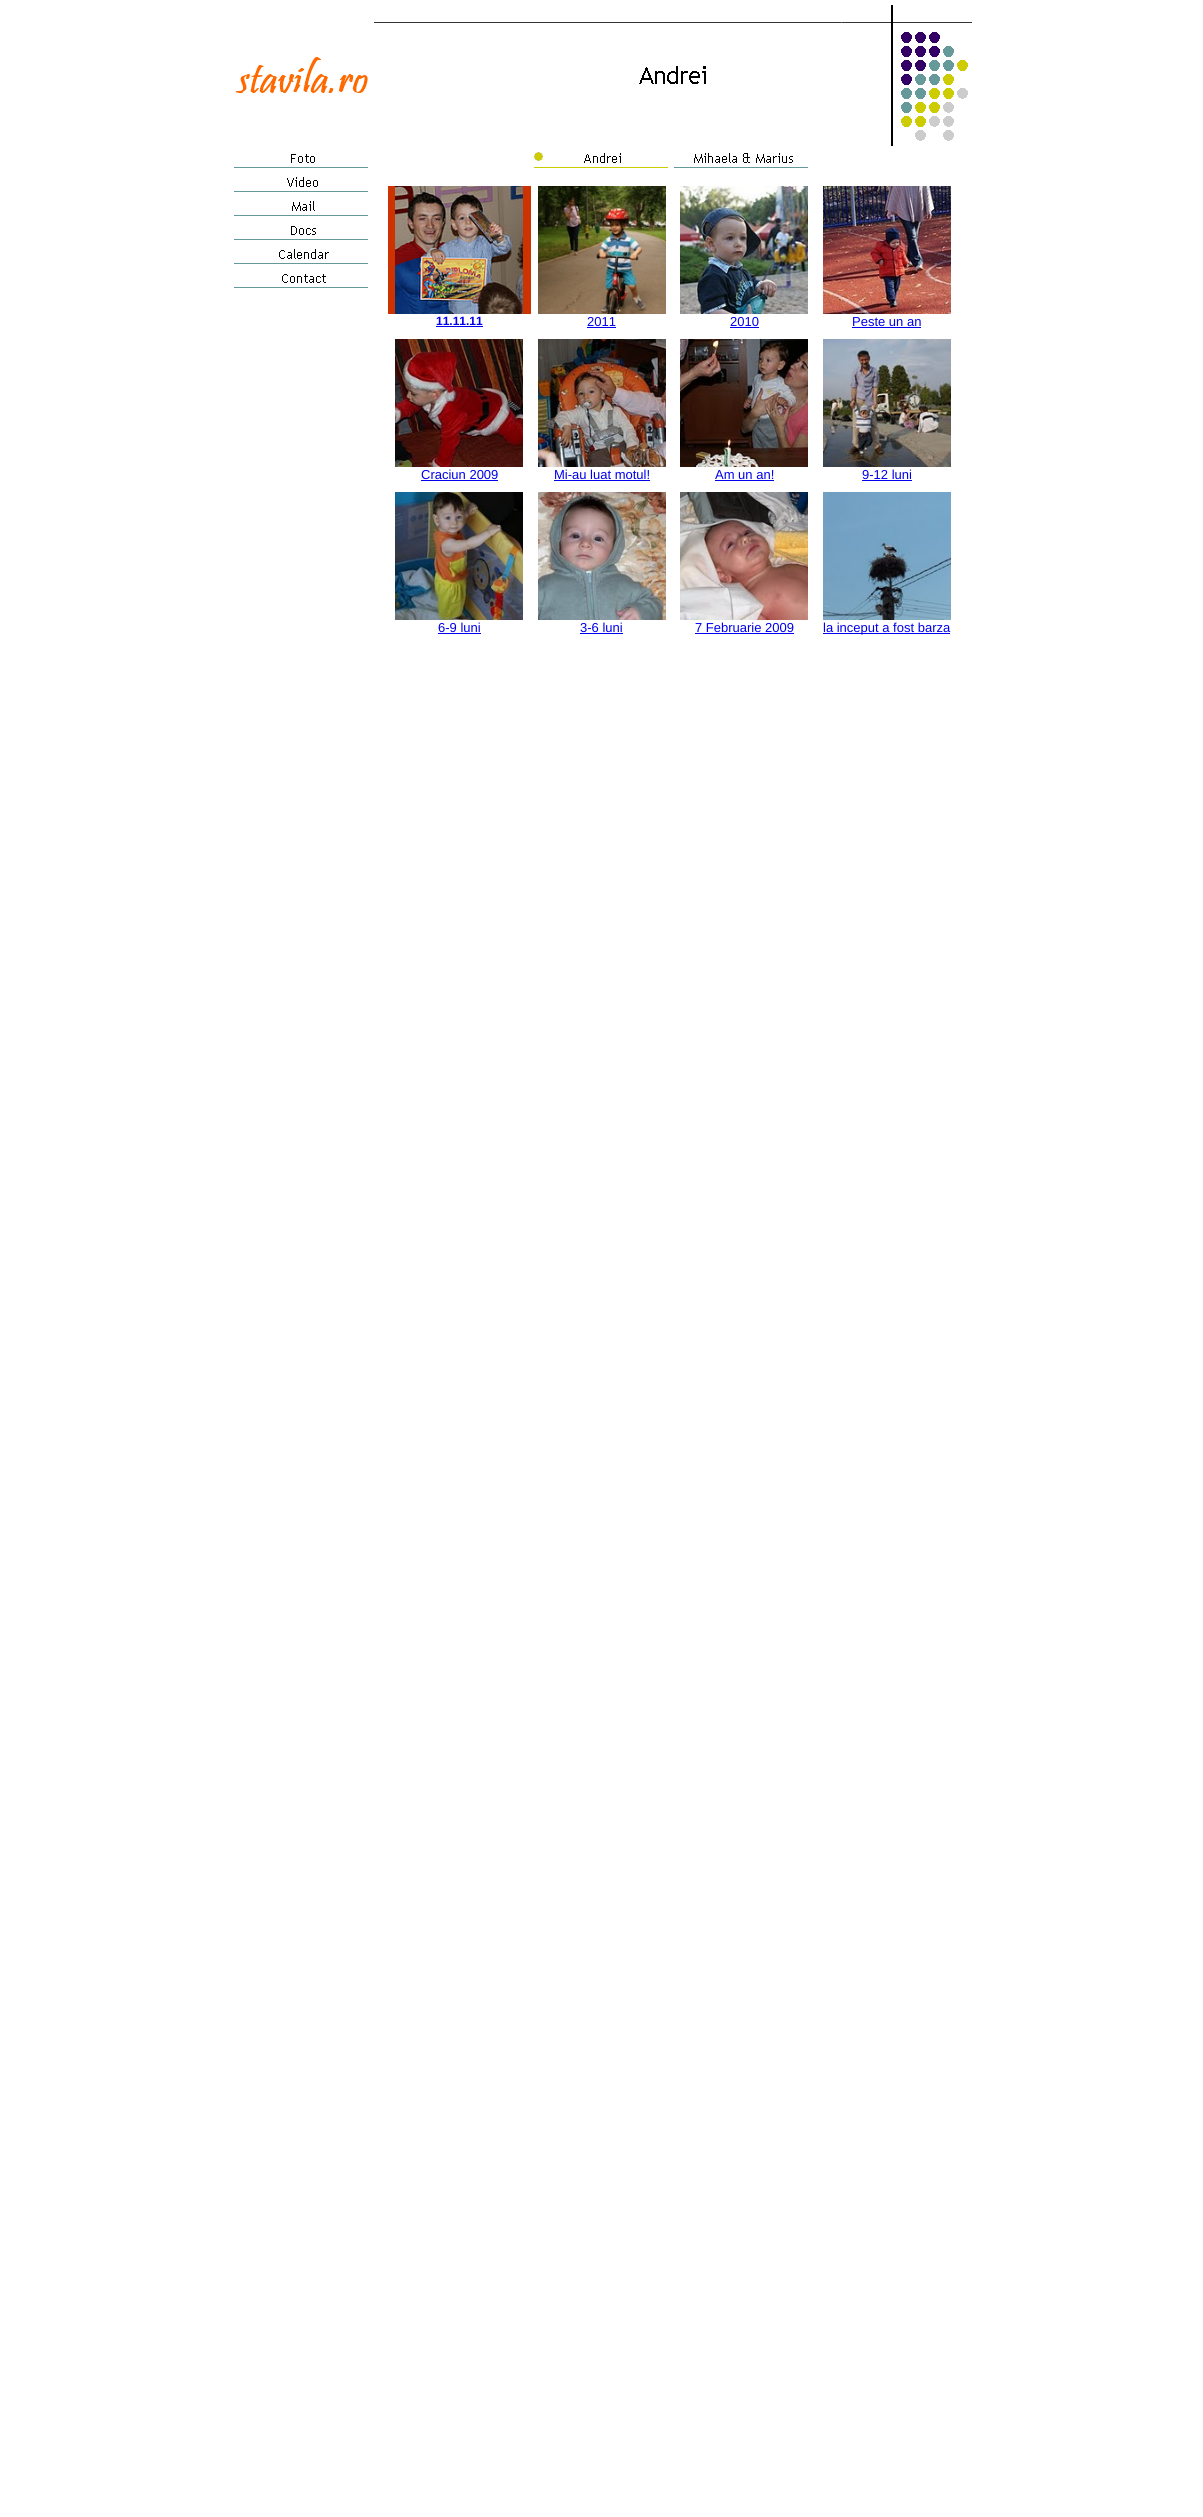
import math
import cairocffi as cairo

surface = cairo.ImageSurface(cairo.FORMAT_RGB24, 1203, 2517)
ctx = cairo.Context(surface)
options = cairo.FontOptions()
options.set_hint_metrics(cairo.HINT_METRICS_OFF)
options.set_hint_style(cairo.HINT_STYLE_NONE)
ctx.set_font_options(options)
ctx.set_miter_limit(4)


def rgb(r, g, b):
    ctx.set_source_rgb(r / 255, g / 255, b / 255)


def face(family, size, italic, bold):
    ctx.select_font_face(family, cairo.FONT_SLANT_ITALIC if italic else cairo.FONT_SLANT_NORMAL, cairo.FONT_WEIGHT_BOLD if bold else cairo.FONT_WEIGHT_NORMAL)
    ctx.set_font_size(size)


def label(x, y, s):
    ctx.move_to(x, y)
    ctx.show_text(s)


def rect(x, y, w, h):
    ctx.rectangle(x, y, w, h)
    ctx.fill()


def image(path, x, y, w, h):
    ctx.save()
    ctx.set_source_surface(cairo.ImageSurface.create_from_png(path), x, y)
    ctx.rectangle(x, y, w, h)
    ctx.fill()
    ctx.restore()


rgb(255, 255, 255)
ctx.paint()
image('image0.png', 235, 57, 135, 37)
image('image1.png', 374, 5, 598, 141)
image('image2.png', 234, 154, 134, 14)
image('image3.png', 234, 177, 134, 15)
image('image4.png', 234, 201, 134, 15)
image('image5.png', 234, 226, 134, 14)
image('image6.png', 234, 249, 134, 15)
image('image7.png', 234, 274, 134, 14)
image('image8.png', 534, 152, 134, 16)
image('image9.png', 674, 153, 134, 15)
rgb(204, 51, 0)
rect(388, 186, 143, 128)
image('image10.png', 395, 186, 128, 128)
image('image11.png', 538, 186, 128, 128)
image('image12.png', 680, 186, 128, 128)
image('image13.png', 823, 186, 128, 128)
face('Liberation Sans', 12, 0, 1)
rgb(0, 0, 238)
label(436, 325, '11.11.11')
rect(436, 326, 47, 1)
face('Liberation Sans', 13, 0, 0)
label(587, 326, '2011')
rect(587, 327, 29, 1)
label(730, 326, '2010')
rect(730, 327, 29, 1)
label(852, 326, 'Peste un an')
rect(852, 327, 69, 1)
image('image14.png', 395, 339, 128, 128)
image('image15.png', 538, 339, 128, 128)
image('image16.png', 680, 339, 128, 128)
image('image17.png', 823, 339, 128, 128)
label(421, 479, 'Craciun 2009')
rect(421, 480, 77, 1)
label(554, 479, 'Mi-au luat motul!')
rect(554, 480, 96, 1)
label(715, 479, 'Am un an!')
rect(715, 480, 59, 1)
label(862, 479, '9-12 luni')
rect(862, 480, 50, 1)
image('image18.png', 395, 492, 128, 128)
image('image19.png', 538, 492, 128, 128)
image('image20.png', 680, 492, 128, 128)
image('image21.png', 823, 492, 128, 128)
label(438, 632, '6-9 luni')
rect(438, 633, 43, 1)
label(580, 632, '3-6 luni')
rect(580, 633, 43, 1)
label(695, 632, '7 Februarie 2009')
rect(695, 633, 99, 1)
rect(823, 633, 127, 1)
label(823, 632, 'la inceput a fost barza')
surface.write_to_png('render.png')
